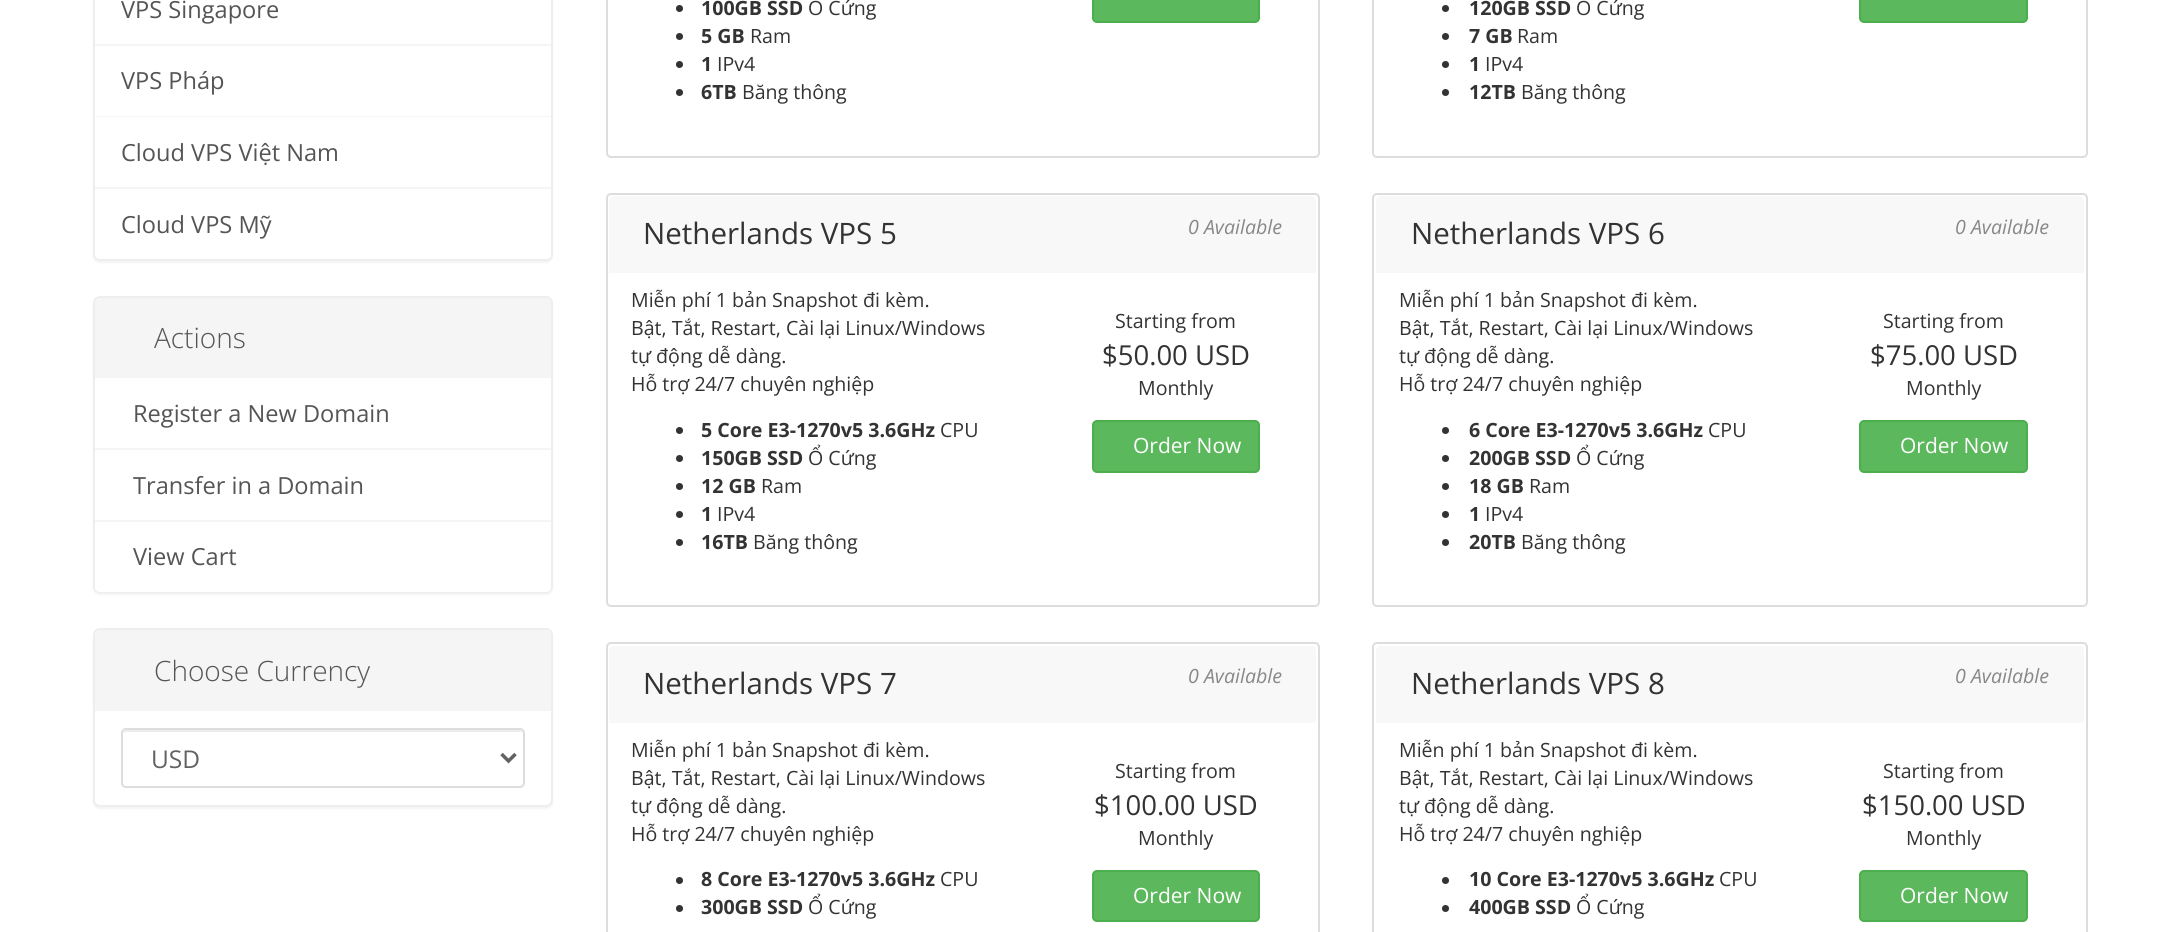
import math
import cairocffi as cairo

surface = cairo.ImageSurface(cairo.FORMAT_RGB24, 2179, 932)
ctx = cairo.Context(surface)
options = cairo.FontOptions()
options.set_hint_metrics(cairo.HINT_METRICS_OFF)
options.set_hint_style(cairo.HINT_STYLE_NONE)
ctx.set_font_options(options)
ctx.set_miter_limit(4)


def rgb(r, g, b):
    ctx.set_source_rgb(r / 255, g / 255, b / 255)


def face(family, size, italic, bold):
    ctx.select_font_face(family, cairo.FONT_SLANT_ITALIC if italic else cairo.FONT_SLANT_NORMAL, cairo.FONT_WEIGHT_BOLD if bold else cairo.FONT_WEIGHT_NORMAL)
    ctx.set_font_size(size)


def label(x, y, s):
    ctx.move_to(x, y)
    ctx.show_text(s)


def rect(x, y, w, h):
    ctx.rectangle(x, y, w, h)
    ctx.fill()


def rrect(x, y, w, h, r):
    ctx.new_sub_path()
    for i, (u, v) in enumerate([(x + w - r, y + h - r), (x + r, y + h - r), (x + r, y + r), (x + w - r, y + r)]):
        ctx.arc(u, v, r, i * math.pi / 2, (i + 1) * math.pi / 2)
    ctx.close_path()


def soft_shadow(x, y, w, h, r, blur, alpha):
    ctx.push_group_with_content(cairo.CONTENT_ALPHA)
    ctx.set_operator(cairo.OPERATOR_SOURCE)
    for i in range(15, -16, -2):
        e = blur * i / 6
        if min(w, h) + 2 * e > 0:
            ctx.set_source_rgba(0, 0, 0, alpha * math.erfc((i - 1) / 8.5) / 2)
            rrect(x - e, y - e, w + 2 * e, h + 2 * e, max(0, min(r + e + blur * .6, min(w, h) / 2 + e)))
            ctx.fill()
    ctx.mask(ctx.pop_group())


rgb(255, 255, 255)
ctx.paint()
rgb(0, 0, 0)
soft_shadow(93, -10, 460, 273, 7, 1, 0.05)
rgb(255, 255, 255)
rrect(94, -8, 458, 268, 6)
ctx.fill_preserve()
rgb(238, 238, 238)
ctx.stroke()
rgb(245, 245, 245)
rect(95, 44, 456, 2)
face('Open Sans', 23.6, 0, 0)
rgb(85, 85, 85)
label(121, 18, 'VPS Singapore')
rgb(245, 245, 245)
rect(95, 116, 456, 1)
rgb(85, 85, 85)
label(121, 89, 'VPS Pháp')
rgb(245, 245, 245)
rect(95, 187, 456, 2)
rgb(85, 85, 85)
label(121, 161, 'Cloud VPS Việt Nam')
rgb(255, 255, 255)
ctx.new_path()
ctx.move_to(95, 189)
ctx.line_to(551, 189)
ctx.line_to(551, 254)
ctx.curve_to(551, 257, 549, 259, 546, 259)
ctx.line_to(100, 259)
ctx.curve_to(97, 259, 95, 257, 95, 254)
ctx.close_path()
ctx.fill()
rgb(85, 85, 85)
label(121, 233, 'Cloud VPS Mỹ')
rgb(0, 0, 0)
soft_shadow(93, 298, 460, 297, 7, 1, 0.05)
rgb(255, 255, 255)
rrect(94, 297, 458, 295, 6)
ctx.fill_preserve()
rgb(238, 238, 238)
ctx.stroke()
rgb(245, 245, 245)
ctx.new_path()
ctx.move_to(100, 298)
ctx.line_to(546, 298)
ctx.curve_to(549, 298, 551, 300, 551, 303)
ctx.line_to(551, 378)
ctx.line_to(95, 378)
ctx.line_to(95, 303)
ctx.curve_to(95, 300, 97, 298, 100, 298)
ctx.close_path()
ctx.fill()
face('Open Sans Light', 28, 0, 0)
rgb(85, 85, 85)
label(154, 348, 'Actions')
rgb(245, 245, 245)
rect(95, 448, 456, 2)
face('Open Sans', 23.6, 0, 0)
rgb(85, 85, 85)
label(133, 422, 'Register a New Domain')
rgb(245, 245, 245)
rect(95, 520, 456, 2)
rgb(85, 85, 85)
label(133, 494, 'Transfer in a Domain')
rgb(255, 255, 255)
ctx.new_path()
ctx.move_to(95, 522)
ctx.line_to(551, 522)
ctx.line_to(551, 587)
ctx.curve_to(551, 590, 549, 592, 546, 592)
ctx.line_to(100, 592)
ctx.curve_to(97, 592, 95, 590, 95, 587)
ctx.close_path()
ctx.fill()
rgb(85, 85, 85)
label(133, 565, 'View Cart')
rgb(0, 0, 0)
soft_shadow(93, 630, 460, 179, 7, 1, 0.05)
rgb(255, 255, 255)
rrect(94, 629, 458, 177, 6)
ctx.fill_preserve()
rgb(238, 238, 238)
ctx.stroke()
rgb(245, 245, 245)
ctx.new_path()
ctx.move_to(100, 630)
ctx.line_to(546, 630)
ctx.curve_to(549, 630, 551, 632, 551, 635)
ctx.line_to(551, 711)
ctx.line_to(95, 711)
ctx.line_to(95, 635)
ctx.curve_to(95, 632, 97, 630, 100, 630)
ctx.close_path()
ctx.fill()
face('Open Sans Light', 28, 0, 0)
rgb(85, 85, 85)
label(154, 681, 'Choose Currency')
rgb(236, 236, 236)
ctx.new_path()
ctx.move_to(126, 732)
ctx.line_to(520, 732)
ctx.curve_to(522, 732, 523, 733, 523, 735)
ctx.line_to(523, 734)
ctx.curve_to(523, 732, 521, 730, 519, 730)
ctx.line_to(127, 730)
ctx.curve_to(125, 730, 124, 731, 123, 733)
ctx.close_path()
ctx.fill()
rrect(122, 729, 402, 58, 4)
rgb(221, 221, 221)
ctx.stroke()
ctx.new_path()
ctx.move_to(501.5, 754)
ctx.line_to(508.5, 761)
ctx.line_to(515.5, 754)
rgb(98, 98, 98)
ctx.set_line_width(3.5)
ctx.stroke()
face('Open Sans', 24.5, 0, 0)
label(151, 768, 'USD')
rrect(607, -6, 712, 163, 4)
rgb(221, 221, 221)
ctx.set_line_width(2)
ctx.stroke()
rgb(51, 51, 51)
ctx.arc(679.5, 8.5, 3.5, 0, 2 * math.pi)
ctx.fill()
face('Open Sans', 19.6, 0, 1)
label(701, 15, '100GB SSD')
face('Open Sans', 19.6, 0, 0)
label(808, 15, 'Ổ Cứng')
ctx.new_path()
ctx.arc(679.5, 36.5, 3.5, 0, 2 * math.pi)
ctx.fill()
face('Open Sans', 19.6, 0, 1)
label(701, 43, '5 GB')
face('Open Sans', 19.6, 0, 0)
label(750, 43, 'Ram')
ctx.new_path()
ctx.arc(679.5, 64.5, 3.5, 0, 2 * math.pi)
ctx.fill()
face('Open Sans', 19.6, 0, 1)
label(701, 71, '1')
face('Open Sans', 19.6, 0, 0)
label(717, 71, 'IPv4')
ctx.new_path()
ctx.arc(679.5, 92.5, 3.5, 0, 2 * math.pi)
ctx.fill()
face('Open Sans', 19.6, 0, 1)
label(701, 99, '6TB')
face('Open Sans', 19.6, 0, 0)
label(742, 99, 'Băng thông')
rgb(92, 184, 92)
rrect(1093, -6, 166, 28, 4)
ctx.fill_preserve()
rgb(76, 174, 76)
ctx.stroke()
rrect(1373, -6, 714, 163, 4)
rgb(221, 221, 221)
ctx.stroke()
rgb(51, 51, 51)
ctx.arc(1445.5, 8.5, 3.5, 0, 2 * math.pi)
ctx.fill()
face('Open Sans', 19.6, 0, 1)
label(1469, 15, '120GB SSD')
face('Open Sans', 19.6, 0, 0)
label(1576, 15, 'Ổ Cứng')
ctx.new_path()
ctx.arc(1445.5, 36.5, 3.5, 0, 2 * math.pi)
ctx.fill()
face('Open Sans', 19.6, 0, 1)
label(1469, 43, '7 GB')
face('Open Sans', 19.6, 0, 0)
label(1517, 43, 'Ram')
ctx.new_path()
ctx.arc(1445.5, 64.5, 3.5, 0, 2 * math.pi)
ctx.fill()
face('Open Sans', 19.6, 0, 1)
label(1469, 71, '1')
face('Open Sans', 19.6, 0, 0)
label(1485, 71, 'IPv4')
ctx.new_path()
ctx.arc(1445.5, 92.5, 3.5, 0, 2 * math.pi)
ctx.fill()
face('Open Sans', 19.6, 0, 1)
label(1469, 99, '12TB')
face('Open Sans', 19.6, 0, 0)
label(1521, 99, 'Băng thông')
rgb(92, 184, 92)
rrect(1860, -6, 167, 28, 4)
ctx.fill_preserve()
rgb(76, 174, 76)
ctx.stroke()
rrect(607, 194, 712, 412, 4)
rgb(221, 221, 221)
ctx.stroke()
rgb(248, 248, 248)
ctx.new_path()
ctx.move_to(614, 196)
ctx.line_to(1311, 196)
ctx.curve_to(1314, 196, 1316, 198, 1316, 201)
ctx.line_to(1316, 273)
ctx.line_to(609, 273)
ctx.line_to(609, 201)
ctx.curve_to(609, 198, 611, 196, 614, 196)
ctx.close_path()
ctx.fill()
face('Open Sans', 29.5, 0, 0)
rgb(51, 51, 51)
label(643, 244, 'Netherlands VPS 5')
face('Open Sans', 19.6, 1, 0)
rgb(136, 136, 136)
label(1188, 234, '0 Available')
face('Open Sans', 19.6, 0, 0)
rgb(51, 51, 51)
label(631, 307, 'Miễn phí 1 bản Snapshot đi kèm.')
label(631, 335, 'Bật, Tắt, Restart, Cài lại Linux/Windows')
label(631, 363, 'tự động dễ dàng.')
label(631, 391, 'Hỗ trợ 24/7 chuyên nghiệp')
ctx.new_path()
ctx.arc(679.5, 430.5, 3.5, 0, 2 * math.pi)
ctx.fill()
face('Open Sans', 19.6, 0, 1)
label(701, 437, '5 Core E3-1270v5 3.6GHz')
face('Open Sans', 19.6, 0, 0)
label(940, 437, 'CPU')
ctx.new_path()
ctx.arc(679.5, 458.5, 3.5, 0, 2 * math.pi)
ctx.fill()
face('Open Sans', 19.6, 0, 1)
label(701, 465, '150GB SSD')
face('Open Sans', 19.6, 0, 0)
label(808, 465, 'Ổ Cứng')
ctx.new_path()
ctx.arc(679.5, 486.5, 3.5, 0, 2 * math.pi)
ctx.fill()
face('Open Sans', 19.6, 0, 1)
label(701, 493, '12 GB')
face('Open Sans', 19.6, 0, 0)
label(761, 493, 'Ram')
ctx.new_path()
ctx.arc(679.5, 514.5, 3.5, 0, 2 * math.pi)
ctx.fill()
face('Open Sans', 19.6, 0, 1)
label(701, 521, '1')
face('Open Sans', 19.6, 0, 0)
label(717, 521, 'IPv4')
ctx.new_path()
ctx.arc(679.5, 542.5, 3.5, 0, 2 * math.pi)
ctx.fill()
face('Open Sans', 19.6, 0, 1)
label(701, 549, '16TB')
face('Open Sans', 19.6, 0, 0)
label(753, 549, 'Băng thông')
label(1115, 328, 'Starting from')
face('Open Sans', 27.5, 0, 0)
label(1102, 365, '$50.00 USD')
face('Open Sans', 19.6, 0, 0)
label(1138, 395, 'Monthly')
rgb(92, 184, 92)
rrect(1093, 421, 166, 51, 4)
ctx.fill_preserve()
rgb(76, 174, 76)
ctx.stroke()
face('Open Sans', 21, 0, 0)
rgb(255, 255, 255)
label(1133, 453, 'Order Now')
rrect(1373, 194, 714, 412, 4)
rgb(221, 221, 221)
ctx.stroke()
rgb(248, 248, 248)
ctx.new_path()
ctx.move_to(1381, 196)
ctx.line_to(2079, 196)
ctx.curve_to(2082, 196, 2084, 198, 2084, 201)
ctx.line_to(2084, 273)
ctx.line_to(1376, 273)
ctx.line_to(1376, 201)
ctx.curve_to(1376, 198, 1378, 196, 1381, 196)
ctx.close_path()
ctx.fill()
face('Open Sans', 29.5, 0, 0)
rgb(51, 51, 51)
label(1411, 244, 'Netherlands VPS 6')
face('Open Sans', 19.6, 1, 0)
rgb(136, 136, 136)
label(1955, 234, '0 Available')
face('Open Sans', 19.6, 0, 0)
rgb(51, 51, 51)
label(1399, 307, 'Miễn phí 1 bản Snapshot đi kèm.')
label(1399, 335, 'Bật, Tắt, Restart, Cài lại Linux/Windows')
label(1399, 363, 'tự động dễ dàng.')
label(1399, 391, 'Hỗ trợ 24/7 chuyên nghiệp')
ctx.new_path()
ctx.arc(1445.5, 430.5, 3.5, 0, 2 * math.pi)
ctx.fill()
face('Open Sans', 19.6, 0, 1)
label(1469, 437, '6 Core E3-1270v5 3.6GHz')
face('Open Sans', 19.6, 0, 0)
label(1708, 437, 'CPU')
ctx.new_path()
ctx.arc(1445.5, 458.5, 3.5, 0, 2 * math.pi)
ctx.fill()
face('Open Sans', 19.6, 0, 1)
label(1469, 465, '200GB SSD')
face('Open Sans', 19.6, 0, 0)
label(1576, 465, 'Ổ Cứng')
ctx.new_path()
ctx.arc(1445.5, 486.5, 3.5, 0, 2 * math.pi)
ctx.fill()
face('Open Sans', 19.6, 0, 1)
label(1469, 493, '18 GB')
face('Open Sans', 19.6, 0, 0)
label(1529, 493, 'Ram')
ctx.new_path()
ctx.arc(1445.5, 514.5, 3.5, 0, 2 * math.pi)
ctx.fill()
face('Open Sans', 19.6, 0, 1)
label(1469, 521, '1')
face('Open Sans', 19.6, 0, 0)
label(1485, 521, 'IPv4')
ctx.new_path()
ctx.arc(1445.5, 542.5, 3.5, 0, 2 * math.pi)
ctx.fill()
face('Open Sans', 19.6, 0, 1)
label(1469, 549, '20TB')
face('Open Sans', 19.6, 0, 0)
label(1521, 549, 'Băng thông')
label(1883, 328, 'Starting from')
face('Open Sans', 27.5, 0, 0)
label(1870, 365, '$75.00 USD')
face('Open Sans', 19.6, 0, 0)
label(1906, 395, 'Monthly')
rgb(92, 184, 92)
rrect(1860, 421, 167, 51, 4)
ctx.fill_preserve()
rgb(76, 174, 76)
ctx.stroke()
face('Open Sans', 21, 0, 0)
rgb(255, 255, 255)
label(1900, 453, 'Order Now')
rrect(607, 643, 712, 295, 4)
rgb(221, 221, 221)
ctx.stroke()
rgb(248, 248, 248)
ctx.new_path()
ctx.move_to(614, 646)
ctx.line_to(1311, 646)
ctx.curve_to(1314, 646, 1316, 648, 1316, 651)
ctx.line_to(1316, 723)
ctx.line_to(609, 723)
ctx.line_to(609, 651)
ctx.curve_to(609, 648, 611, 646, 614, 646)
ctx.close_path()
ctx.fill()
face('Open Sans', 29.5, 0, 0)
rgb(51, 51, 51)
label(643, 694, 'Netherlands VPS 7')
face('Open Sans', 19.6, 1, 0)
rgb(136, 136, 136)
label(1188, 683, '0 Available')
face('Open Sans', 19.6, 0, 0)
rgb(51, 51, 51)
label(631, 757, 'Miễn phí 1 bản Snapshot đi kèm.')
label(631, 785, 'Bật, Tắt, Restart, Cài lại Linux/Windows')
label(631, 813, 'tự động dễ dàng.')
label(631, 841, 'Hỗ trợ 24/7 chuyên nghiệp')
ctx.new_path()
ctx.arc(679.5, 880.5, 3.5, 0, 2 * math.pi)
ctx.fill()
face('Open Sans', 19.6, 0, 1)
label(701, 886, '8 Core E3-1270v5 3.6GHz')
face('Open Sans', 19.6, 0, 0)
label(940, 886, 'CPU')
ctx.new_path()
ctx.arc(679.5, 908.5, 3.5, 0, 2 * math.pi)
ctx.fill()
face('Open Sans', 19.6, 0, 1)
label(701, 914, '300GB SSD')
face('Open Sans', 19.6, 0, 0)
label(808, 914, 'Ổ Cứng')
label(1115, 778, 'Starting from')
face('Open Sans', 27.5, 0, 0)
label(1094, 815, '$100.00 USD')
face('Open Sans', 19.6, 0, 0)
label(1138, 845, 'Monthly')
rgb(92, 184, 92)
rrect(1093, 871, 166, 50, 4)
ctx.fill_preserve()
rgb(76, 174, 76)
ctx.stroke()
face('Open Sans', 21, 0, 0)
rgb(255, 255, 255)
label(1133, 903, 'Order Now')
rrect(1373, 643, 714, 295, 4)
rgb(221, 221, 221)
ctx.stroke()
rgb(248, 248, 248)
ctx.new_path()
ctx.move_to(1381, 646)
ctx.line_to(2079, 646)
ctx.curve_to(2082, 646, 2084, 648, 2084, 651)
ctx.line_to(2084, 723)
ctx.line_to(1376, 723)
ctx.line_to(1376, 651)
ctx.curve_to(1376, 648, 1378, 646, 1381, 646)
ctx.close_path()
ctx.fill()
face('Open Sans', 29.5, 0, 0)
rgb(51, 51, 51)
label(1411, 694, 'Netherlands VPS 8')
face('Open Sans', 19.6, 1, 0)
rgb(136, 136, 136)
label(1955, 683, '0 Available')
face('Open Sans', 19.6, 0, 0)
rgb(51, 51, 51)
label(1399, 757, 'Miễn phí 1 bản Snapshot đi kèm.')
label(1399, 785, 'Bật, Tắt, Restart, Cài lại Linux/Windows')
label(1399, 813, 'tự động dễ dàng.')
label(1399, 841, 'Hỗ trợ 24/7 chuyên nghiệp')
ctx.new_path()
ctx.arc(1445.5, 880.5, 3.5, 0, 2 * math.pi)
ctx.fill()
face('Open Sans', 19.6, 0, 1)
label(1469, 886, '10 Core E3-1270v5 3.6GHz')
face('Open Sans', 19.6, 0, 0)
label(1719, 886, 'CPU')
ctx.new_path()
ctx.arc(1445.5, 908.5, 3.5, 0, 2 * math.pi)
ctx.fill()
face('Open Sans', 19.6, 0, 1)
label(1469, 914, '400GB SSD')
face('Open Sans', 19.6, 0, 0)
label(1576, 914, 'Ổ Cứng')
label(1883, 778, 'Starting from')
face('Open Sans', 27.5, 0, 0)
label(1862, 815, '$150.00 USD')
face('Open Sans', 19.6, 0, 0)
label(1906, 845, 'Monthly')
rgb(92, 184, 92)
rrect(1860, 871, 167, 50, 4)
ctx.fill_preserve()
rgb(76, 174, 76)
ctx.stroke()
face('Open Sans', 21, 0, 0)
rgb(255, 255, 255)
label(1900, 903, 'Order Now')
surface.write_to_png('render.png')
